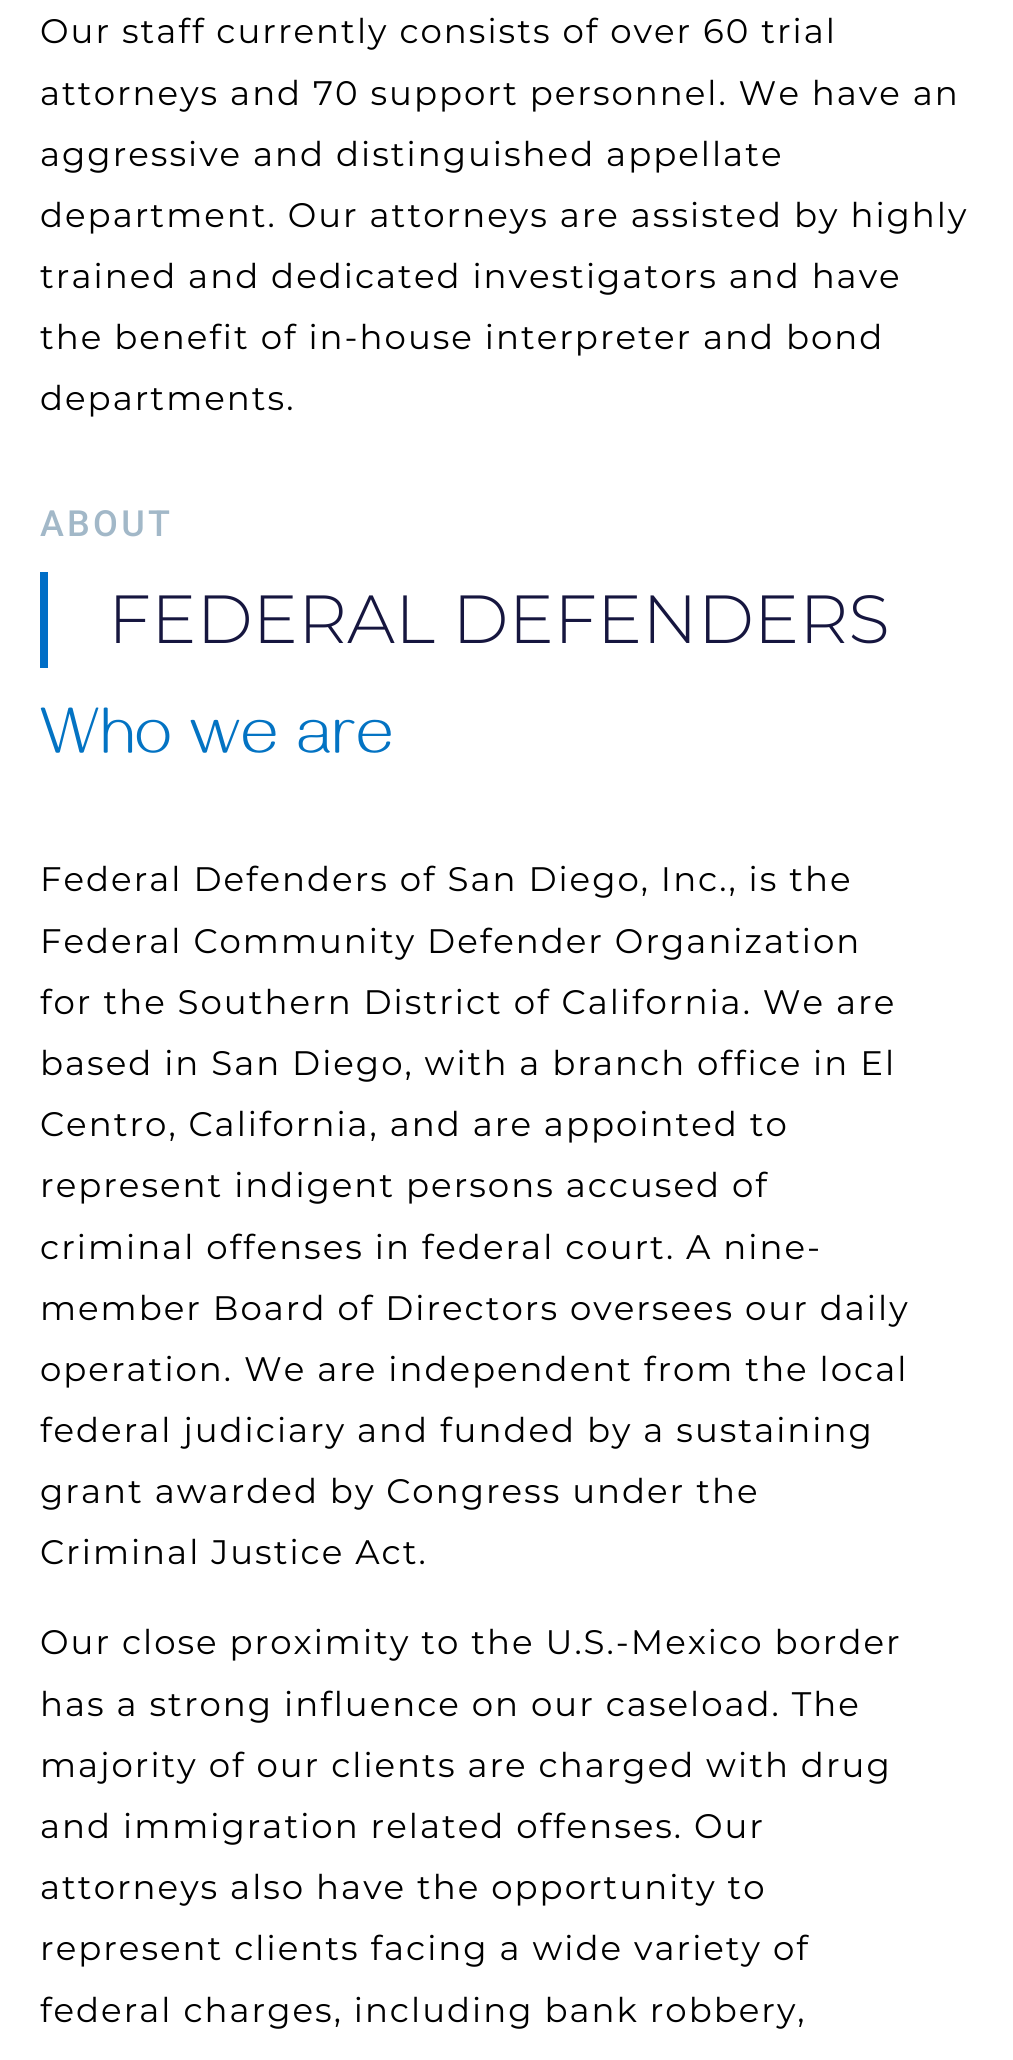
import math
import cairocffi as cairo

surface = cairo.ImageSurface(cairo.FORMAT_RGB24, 1013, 2060)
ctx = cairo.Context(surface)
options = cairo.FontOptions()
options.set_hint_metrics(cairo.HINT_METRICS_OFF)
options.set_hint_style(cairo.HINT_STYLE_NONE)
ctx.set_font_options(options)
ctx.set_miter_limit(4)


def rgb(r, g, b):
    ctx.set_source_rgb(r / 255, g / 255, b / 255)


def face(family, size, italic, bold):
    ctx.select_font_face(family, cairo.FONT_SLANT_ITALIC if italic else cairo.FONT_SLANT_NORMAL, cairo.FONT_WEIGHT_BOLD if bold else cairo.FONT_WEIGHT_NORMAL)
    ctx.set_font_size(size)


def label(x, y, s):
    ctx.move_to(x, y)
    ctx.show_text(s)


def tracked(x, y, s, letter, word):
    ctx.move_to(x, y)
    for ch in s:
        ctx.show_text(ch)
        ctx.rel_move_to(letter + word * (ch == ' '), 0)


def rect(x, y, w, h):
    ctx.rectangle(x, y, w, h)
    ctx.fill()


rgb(255, 255, 255)
ctx.paint()
face('Montserrat', 34, 0, 0)
rgb(0, 0, 0)
tracked(40, 43, 'Our staff currently consists of over 60 trial', 2, 0)
tracked(40, 105, 'attorneys and 70 support personnel. We have an', 2, 0)
tracked(40, 166, 'aggressive and distinguished appellate', 2, 0)
tracked(40, 227, 'department. Our attorneys are assisted by highly', 2, 0)
tracked(40, 288, 'trained and dedicated investigators and have', 2, 0)
tracked(40, 349, 'the benefit of in-house interpreter and bond', 2, 0)
tracked(40, 410, 'departments.', 2, 0)
face('Roboto Medium', 36, 0, 0)
rgb(162, 184, 200)
tracked(40, 536, 'ABOUT', 3.25, 0)
rgb(0, 110, 198)
rect(40, 572, 8, 96)
face('Montserrat Light', 68, 0, 0)
rgb(22, 22, 63)
label(108, 643, 'FEDERAL DEFENDERS')
face('Gayathri Thin', 66, 0, 0)
rgb(3, 115, 195)
tracked(40, 752, 'Who we are', 1.4, 0)
face('Montserrat', 34, 0, 0)
rgb(0, 0, 0)
tracked(40, 891, 'Federal Defenders of San Diego, Inc., is the', 2, 0)
tracked(40, 953, 'Federal Community Defender Organization', 2, 0)
tracked(40, 1014, 'for the Southern District of California. We are', 2, 0)
tracked(40, 1075, 'based in San Diego, with a branch office in El', 2, 0)
tracked(40, 1136, 'Centro, California, and are appointed to', 2, 0)
tracked(40, 1197, 'represent indigent persons accused of', 2, 0)
tracked(40, 1259, 'criminal offenses in federal court. A nine-', 2, 0)
tracked(40, 1320, 'member Board of Directors oversees our daily', 2, 0)
tracked(40, 1381, 'operation. We are independent from the local', 2, 0)
tracked(40, 1442, 'federal judiciary and funded by a sustaining', 2, 0)
tracked(40, 1503, 'grant awarded by Congress under the', 2, 0)
tracked(40, 1564, 'Criminal Justice Act.', 2, 0)
tracked(40, 1654, 'Our close proximity to the U.S.-Mexico border', 2, 0)
tracked(40, 1716, 'has a strong influence on our caseload. The', 2, 0)
tracked(40, 1777, 'majority of our clients are charged with drug', 2, 0)
tracked(40, 1838, 'and immigration related offenses. Our', 2, 0)
tracked(40, 1899, 'attorneys also have the opportunity to', 2, 0)
tracked(40, 1960, 'represent clients facing a wide variety of', 2, 0)
tracked(40, 2022, 'federal charges, including bank robbery,', 2, 0)
surface.write_to_png('render.png')
